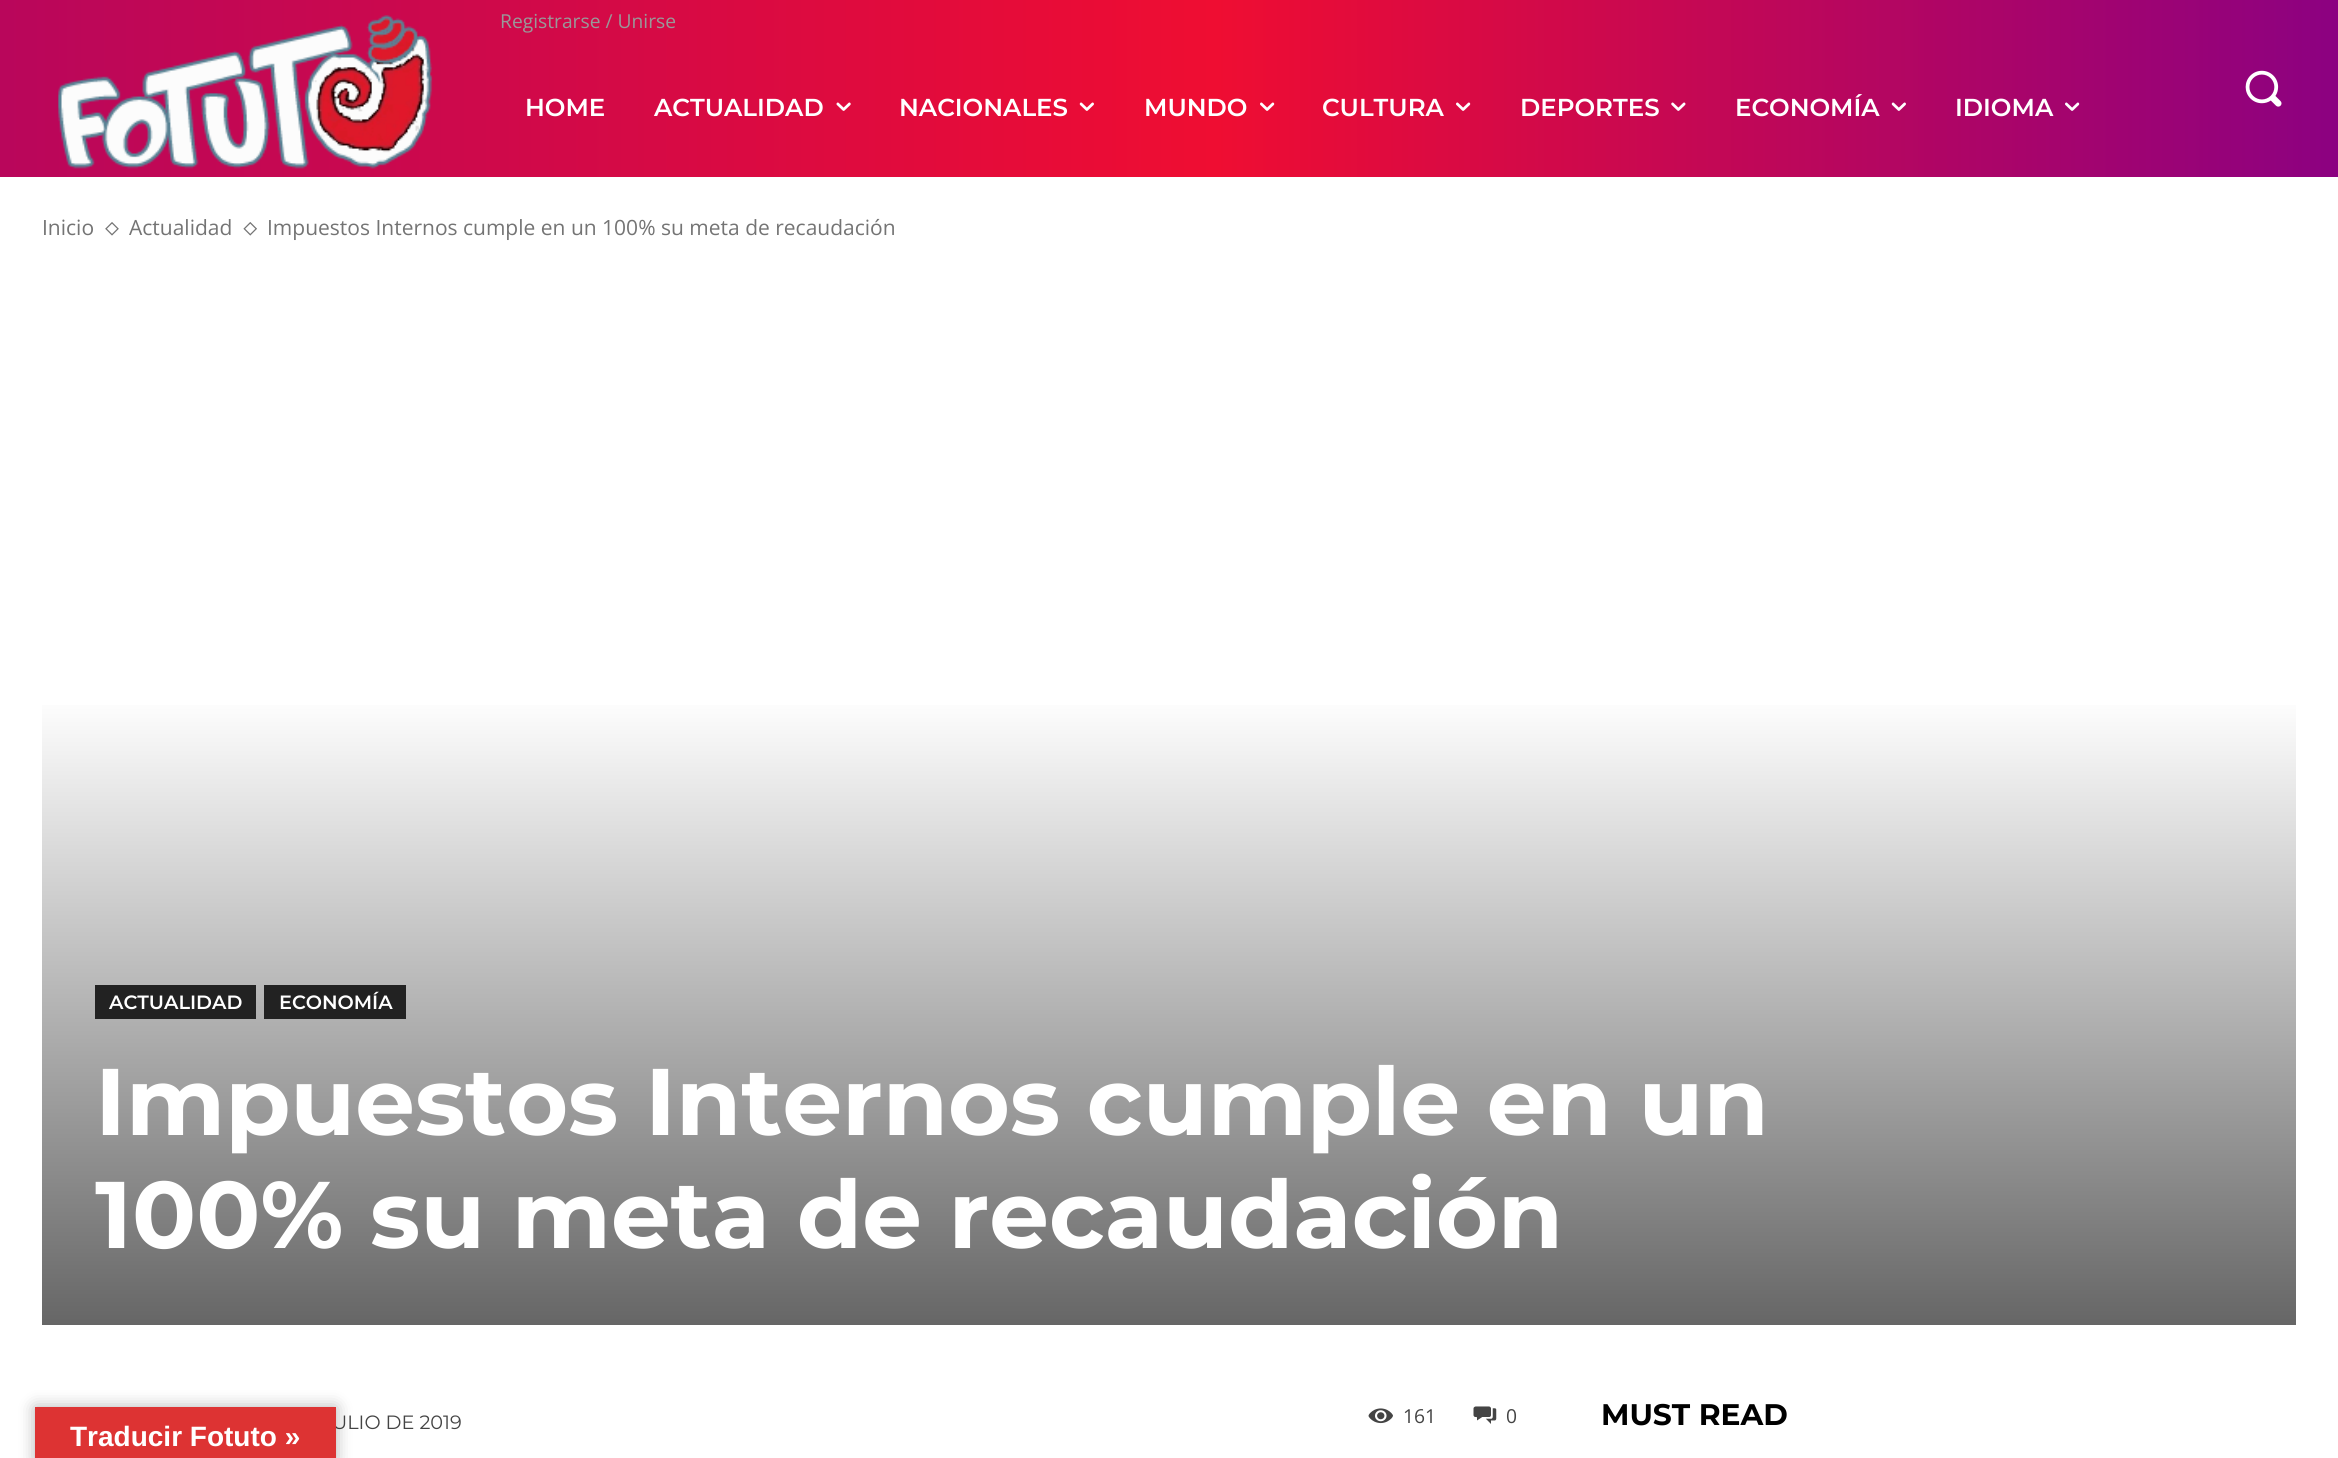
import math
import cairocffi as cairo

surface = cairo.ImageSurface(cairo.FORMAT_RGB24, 2338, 1458)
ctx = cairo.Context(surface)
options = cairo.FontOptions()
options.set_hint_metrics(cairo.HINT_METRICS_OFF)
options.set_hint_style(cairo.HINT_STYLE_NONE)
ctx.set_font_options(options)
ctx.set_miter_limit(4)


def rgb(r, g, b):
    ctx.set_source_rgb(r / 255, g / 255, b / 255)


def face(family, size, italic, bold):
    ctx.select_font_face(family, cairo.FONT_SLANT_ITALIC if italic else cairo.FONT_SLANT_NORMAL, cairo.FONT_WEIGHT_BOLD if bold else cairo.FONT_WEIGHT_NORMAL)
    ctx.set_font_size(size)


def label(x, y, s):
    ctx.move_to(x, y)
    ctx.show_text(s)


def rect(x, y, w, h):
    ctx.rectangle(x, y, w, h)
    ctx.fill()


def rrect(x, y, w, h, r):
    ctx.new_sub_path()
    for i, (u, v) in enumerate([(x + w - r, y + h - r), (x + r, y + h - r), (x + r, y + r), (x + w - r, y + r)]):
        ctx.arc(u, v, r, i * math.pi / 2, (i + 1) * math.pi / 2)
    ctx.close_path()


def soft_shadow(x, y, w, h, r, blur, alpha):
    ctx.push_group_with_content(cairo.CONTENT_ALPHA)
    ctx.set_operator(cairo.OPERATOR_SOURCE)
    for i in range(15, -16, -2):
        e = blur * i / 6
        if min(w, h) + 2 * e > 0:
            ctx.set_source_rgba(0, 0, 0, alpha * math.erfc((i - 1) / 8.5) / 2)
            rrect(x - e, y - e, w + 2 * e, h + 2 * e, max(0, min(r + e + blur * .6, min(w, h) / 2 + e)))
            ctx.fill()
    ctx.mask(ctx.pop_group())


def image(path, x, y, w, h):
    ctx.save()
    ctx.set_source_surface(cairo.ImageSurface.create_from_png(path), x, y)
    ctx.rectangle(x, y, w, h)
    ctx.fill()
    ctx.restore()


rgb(255, 255, 255)
ctx.paint()
gradient = cairo.LinearGradient(2338, 88, 0, 88)
gradient.add_color_stop_rgba(0, 0.549, 0.004, 0.506, 1)
gradient.add_color_stop_rgba(0.48, 0.937, 0.051, 0.196, 1)
gradient.add_color_stop_rgba(1, 0.725, 0.024, 0.357, 1)
ctx.set_source(gradient)
rect(0, 0, 2338, 177)
image('image0.png', 58, 15, 375, 154)
face('Open Sans', 19.25, 0, 0)
rgb(153, 153, 153)
label(500, 28, 'Registrarse / Unirse')
face('Montserrat SemiBold', 24.5, 0, 0)
rgb(255, 255, 255)
label(525, 116, 'HOME')
label(654, 116, 'ACTUALIDAD')
image('image1.png', 836, 102, 15, 9)
label(899, 116, 'NACIONALES')
image('image2.png', 1079, 102, 15, 9)
label(1144, 116, 'MUNDO')
image('image3.png', 1260, 102, 15, 9)
label(1322, 116, 'CULTURA')
image('image4.png', 1456, 102, 15, 9)
label(1520, 116, 'DEPORTES')
image('image5.png', 1671, 102, 15, 9)
label(1735, 116, 'ECONOMÍA')
image('image6.png', 1891, 102, 15, 9)
label(1955, 116, 'IDIOMA')
image('image7.png', 2065, 102, 15, 9)
image('image8.png', 2245, 70, 37, 37)
face('Open Sans', 21, 0, 0)
rgb(116, 116, 116)
label(42, 235, 'Inicio')
image('image9.png', 105, 222, 14, 14)
label(129, 235, 'Actualidad')
image('image10.png', 243, 222, 14, 14)
label(267, 235, 'Impuestos Internos cumple en un 100% su meta de recaudación')
gradient = cairo.LinearGradient(1169, 275, 1169, 1325)
gradient.add_color_stop_rgba(0, 1, 1, 1, 1)
gradient.add_color_stop_rgba(0.4, 1, 1, 1, 1)
gradient.add_color_stop_rgba(1, 0.4, 0.4, 0.4, 1)
ctx.set_source(gradient)
rect(42, 705, 2254, 620)
rgb(34, 34, 34)
rect(95, 985, 161, 34)
face('Montserrat SemiBold', 19.25, 0, 0)
rgb(255, 255, 255)
label(109, 1009, 'ACTUALIDAD')
rgb(34, 34, 34)
rect(264, 985, 142, 34)
rgb(255, 255, 255)
label(279, 1009, 'ECONOMÍA')
face('Montserrat', 94.5, 0, 1)
label(95, 1135, 'Impuestos Internos cumple en un')
label(95, 1248, '100% su meta de recaudación')
face('Montserrat', 19.25, 0, 0)
rgb(68, 68, 68)
label(332, 1429, 'ULIO DE 2019')
image('image11.png', 1368, 1408, 25, 16)
face('Open Sans', 19.25, 0, 0)
label(1403, 1423, '161')
image('image12.png', 1473, 1406, 24, 18)
label(1506, 1423, '0')
face('Montserrat', 29.75, 0, 1)
rgb(0, 0, 0)
label(1601, 1425, 'MUST READ')
rgb(0, 0, 0)
soft_shadow(35, 1407, 301, 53, 0, 8, 0.3)
rgb(221, 51, 51)
rect(35, 1407, 301, 51)
face('Liberation Sans', 28, 0, 1)
rgb(255, 255, 255)
label(70, 1446, 'Traducir Fotuto »')
surface.write_to_png('render.png')
